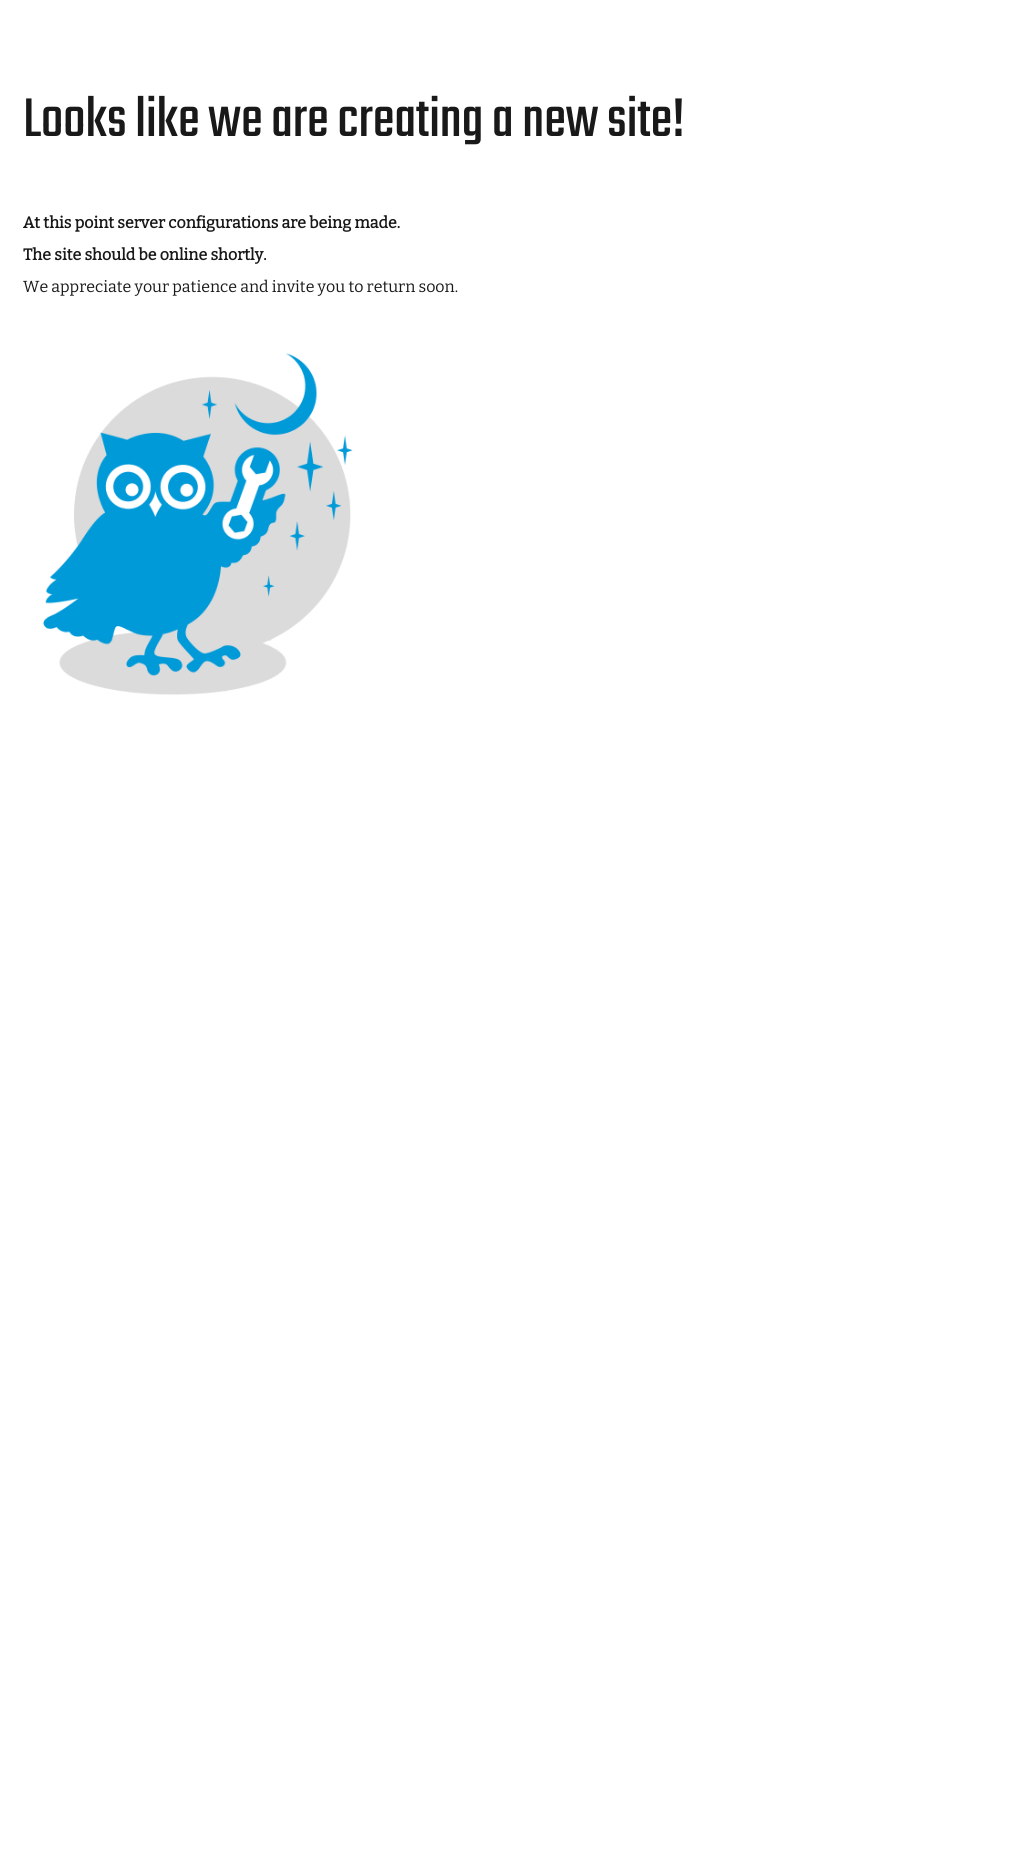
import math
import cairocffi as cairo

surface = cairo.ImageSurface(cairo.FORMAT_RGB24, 1017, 1863)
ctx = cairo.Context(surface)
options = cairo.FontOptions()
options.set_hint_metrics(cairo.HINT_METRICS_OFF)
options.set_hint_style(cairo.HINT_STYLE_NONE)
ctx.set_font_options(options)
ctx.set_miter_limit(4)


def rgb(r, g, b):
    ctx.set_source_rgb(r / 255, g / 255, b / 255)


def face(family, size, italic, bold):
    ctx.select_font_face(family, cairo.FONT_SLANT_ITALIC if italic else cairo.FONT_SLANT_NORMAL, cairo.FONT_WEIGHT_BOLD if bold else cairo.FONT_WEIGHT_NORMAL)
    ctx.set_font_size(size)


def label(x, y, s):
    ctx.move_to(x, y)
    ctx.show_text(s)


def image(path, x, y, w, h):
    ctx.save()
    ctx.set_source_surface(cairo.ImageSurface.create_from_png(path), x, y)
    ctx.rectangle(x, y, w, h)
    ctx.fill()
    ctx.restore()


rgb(255, 255, 255)
ctx.paint()
face('Teko Light', 60, 0, 0)
rgb(26, 25, 25)
label(23, 136, 'Looks like we are creating a new site!')
face('Bitter', 16, 0, 1)
label(23, 228, 'At this point server configurations are being made.')
label(23, 260, 'The site should be online shortly.')
face('Bitter Thin', 16, 0, 0)
label(23, 292, 'We appreciate your patience and invite you to return soon.')
image('image0.png', 43, 353, 310, 342)
surface.write_to_png('render.png')
